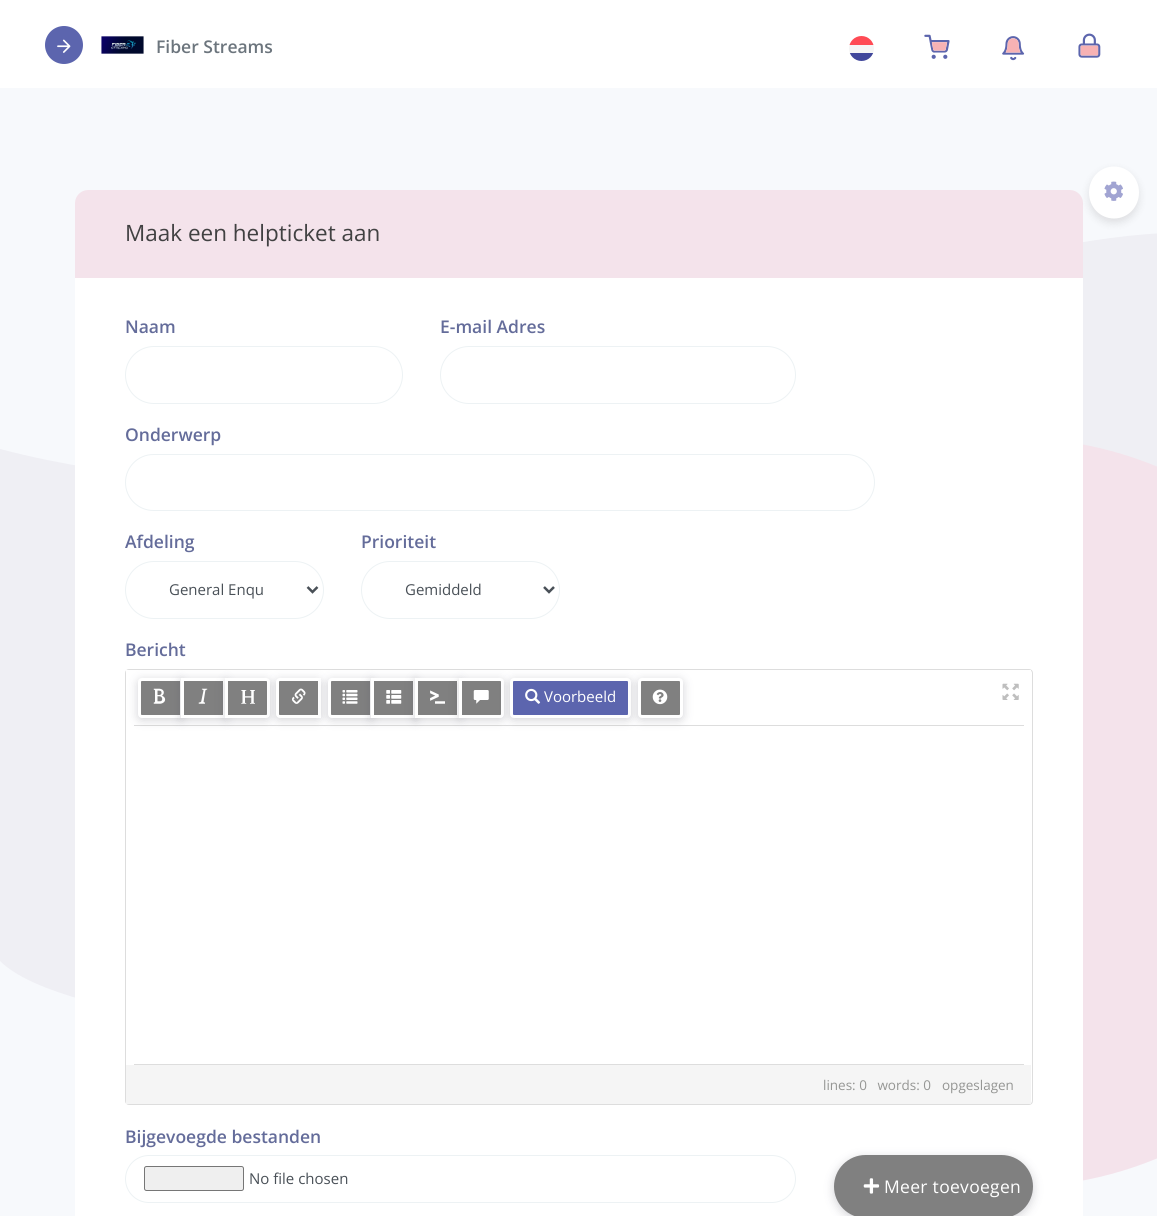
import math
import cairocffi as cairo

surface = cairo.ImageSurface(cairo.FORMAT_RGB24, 1157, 1216)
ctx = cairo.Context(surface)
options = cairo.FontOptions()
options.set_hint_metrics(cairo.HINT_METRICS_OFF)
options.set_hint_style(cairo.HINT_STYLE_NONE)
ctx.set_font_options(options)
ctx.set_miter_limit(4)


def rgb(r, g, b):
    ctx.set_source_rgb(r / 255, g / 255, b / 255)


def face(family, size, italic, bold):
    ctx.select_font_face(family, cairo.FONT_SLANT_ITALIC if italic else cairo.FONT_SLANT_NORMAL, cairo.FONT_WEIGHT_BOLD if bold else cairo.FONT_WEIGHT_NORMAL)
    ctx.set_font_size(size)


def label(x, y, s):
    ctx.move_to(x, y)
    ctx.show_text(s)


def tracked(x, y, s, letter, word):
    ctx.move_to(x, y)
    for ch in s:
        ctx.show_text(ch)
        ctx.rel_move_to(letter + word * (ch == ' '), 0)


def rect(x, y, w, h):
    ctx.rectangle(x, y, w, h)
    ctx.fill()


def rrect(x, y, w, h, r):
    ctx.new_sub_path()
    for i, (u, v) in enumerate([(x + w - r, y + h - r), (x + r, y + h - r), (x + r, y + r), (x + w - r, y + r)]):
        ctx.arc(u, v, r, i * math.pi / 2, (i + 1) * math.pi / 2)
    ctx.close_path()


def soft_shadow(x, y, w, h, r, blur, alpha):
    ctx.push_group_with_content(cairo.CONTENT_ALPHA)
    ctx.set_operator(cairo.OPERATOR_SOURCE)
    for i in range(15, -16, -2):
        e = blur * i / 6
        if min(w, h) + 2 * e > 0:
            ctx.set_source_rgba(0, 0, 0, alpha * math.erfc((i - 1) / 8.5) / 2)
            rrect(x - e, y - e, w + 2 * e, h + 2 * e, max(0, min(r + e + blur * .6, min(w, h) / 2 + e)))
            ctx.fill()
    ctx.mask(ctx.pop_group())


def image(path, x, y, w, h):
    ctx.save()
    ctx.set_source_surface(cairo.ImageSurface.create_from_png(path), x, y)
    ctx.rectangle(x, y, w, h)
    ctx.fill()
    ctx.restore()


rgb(247, 249, 252)
ctx.paint()
rgb(255, 255, 255)
rect(0, 0, 1157, 88)
rgb(92, 101, 174)
ctx.arc(64, 45, 19, 0, 2 * math.pi)
ctx.fill()
image('image0.png', 57, 39, 14, 14)
image('image1.png', 101, 36, 43, 18)
face('Open Sans SemiBold', 17.5, 0, 0)
rgb(108, 117, 125)
label(156, 53, 'Fiber Streams')
ctx.save()
rrect(849, 36, 25, 25, 12.5)
ctx.clip()
rgb(255, 75, 85)
rect(849, 36, 25, 9)
rgb(245, 245, 245)
rect(849, 45, 25, 8)
rgb(65, 71, 155)
rect(849, 53, 25, 8)
ctx.restore()
image('image2.png', 924, 34, 26, 25)
image('image3.png', 1002, 36, 23, 25)
image('image4.png', 1078, 33, 23, 25)
rgb(239, 239, 244)
ctx.new_path()
ctx.move_to(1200, 1061)
ctx.curve_to(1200, 1061, 125, 1086, 0, 961)
ctx.line_to(0, 449)
ctx.curve_to(504, 580, 813, 232, 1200, 232)
ctx.close_path()
ctx.fill()
rgb(244, 227, 235)
ctx.new_path()
ctx.move_to(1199, 1138)
ctx.curve_to(1144, 1169, 1081, 1187, 1013, 1187)
ctx.curve_to(806, 1187, 638, 1019, 638, 812)
ctx.curve_to(638, 606, 806, 438, 1013, 438)
ctx.curve_to(1081, 438, 1144, 456, 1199, 487)
ctx.close_path()
ctx.fill()
rgb(255, 255, 255)
rrect(75, 190, 1008, 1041, 15)
ctx.fill()
rgb(244, 227, 235)
ctx.new_path()
ctx.move_to(88, 190)
ctx.line_to(1070, 190)
ctx.curve_to(1077, 190, 1083, 196, 1083, 203)
ctx.line_to(1083, 278)
ctx.line_to(75, 278)
ctx.line_to(75, 203)
ctx.curve_to(75, 196, 81, 190, 88, 190)
ctx.close_path()
ctx.fill()
rgb(0, 0, 0)
soft_shadow(1089, 170, 50, 53, 25, 4, 0.1)
rgb(255, 255, 255)
ctx.new_path()
ctx.move_to(1114, 166.5)
ctx.curve_to(1128, 166.5, 1139, 178, 1139, 192.5)
ctx.curve_to(1139, 207, 1128, 218.5, 1114, 218.5)
ctx.curve_to(1100, 218.5, 1089, 207, 1089, 192.5)
ctx.curve_to(1089, 178, 1100, 166.5, 1114, 166.5)
ctx.close_path()
ctx.fill()
image('image5.png', 1104, 181, 19, 20)
face('Open Sans', 22.5, 0, 0)
rgb(65, 65, 66)
label(125, 241, 'Maak een helpticket aan')
face('Open Sans SemiBold', 17.5, 0, 0)
rgb(100, 108, 154)
label(125, 333, 'Naam')
rrect(125.5, 346.5, 277, 57, 28.5)
rgb(237, 242, 244)
ctx.set_line_width(1)
ctx.stroke()
rgb(100, 108, 154)
label(440, 333, 'E-mail Adres')
rrect(440.5, 346.5, 355, 57, 28.5)
rgb(237, 242, 244)
ctx.stroke()
rgb(100, 108, 154)
label(125, 441, 'Onderwerp')
rrect(125.5, 454.5, 749, 56, 28)
rgb(237, 242, 244)
ctx.stroke()
rgb(100, 108, 154)
label(125, 548, 'Afdeling')
rrect(125.5, 561.5, 198, 57, 28.5)
rgb(237, 242, 244)
ctx.stroke()
ctx.new_path()
ctx.move_to(307.5, 587)
ctx.line_to(312.5, 592)
ctx.line_to(317.5, 587)
rgb(73, 80, 87)
ctx.set_line_width(2.5)
ctx.stroke()
face('Open Sans', 15, 0, 0)
label(169, 595, 'General Enqu')
face('Open Sans SemiBold', 17.5, 0, 0)
rgb(100, 108, 154)
label(361, 548, 'Prioriteit')
rrect(361.5, 561.5, 198, 57, 28.5)
rgb(237, 242, 244)
ctx.set_line_width(1)
ctx.stroke()
ctx.new_path()
ctx.move_to(544, 587)
ctx.line_to(549, 592)
ctx.line_to(554, 587)
rgb(73, 80, 87)
ctx.set_line_width(2.5)
ctx.stroke()
face('Open Sans', 15, 0, 0)
label(405, 595, 'Gemiddeld')
face('Open Sans SemiBold', 17.5, 0, 0)
rgb(100, 108, 154)
label(125, 656, 'Bericht')
rrect(125.5, 669.5, 907, 435, 3.5)
rgb(221, 221, 221)
ctx.set_line_width(1)
ctx.stroke()
rgb(255, 255, 255)
rect(126, 670, 905, 3)
rgb(221, 221, 221)
rect(134, 725, 890, 1)
rgb(62, 62, 79)
soft_shadow(138, 680, 45, 40, 4, 5, 0.23)
rgb(128, 128, 128)
ctx.new_path()
ctx.move_to(142, 679.5)
ctx.line_to(181.5, 679.5)
ctx.line_to(181.5, 716.5)
ctx.line_to(142, 716.5)
ctx.curve_to(140.5, 716.5, 139.5, 715.5, 139.5, 714)
ctx.line_to(139.5, 682)
ctx.curve_to(139.5, 680.5, 140.5, 679.5, 142, 679.5)
ctx.close_path()
ctx.fill_preserve()
rgb(255, 255, 255)
ctx.set_line_width(3)
ctx.stroke()
image('image6.png', 153, 688, 13, 16)
rgb(62, 62, 79)
soft_shadow(181, 680, 45, 40, 0, 5, 0.23)
rgb(128, 128, 128)
ctx.rectangle(182.5, 679.5, 42, 37)
ctx.fill_preserve()
rgb(255, 255, 255)
ctx.stroke()
image('image7.png', 198, 688, 10, 16)
rgb(62, 62, 79)
soft_shadow(225, 680, 45, 40, 4, 5, 0.23)
rgb(128, 128, 128)
ctx.new_path()
ctx.move_to(226.5, 679.5)
ctx.line_to(266, 679.5)
ctx.curve_to(267.5, 679.5, 268.5, 680.5, 268.5, 682)
ctx.line_to(268.5, 714)
ctx.curve_to(268.5, 715.5, 267.5, 716.5, 266, 716.5)
ctx.line_to(226.5, 716.5)
ctx.close_path()
ctx.fill_preserve()
rgb(255, 255, 255)
ctx.stroke()
image('image8.png', 241, 690, 14, 14)
rgb(62, 62, 79)
soft_shadow(276, 680, 45, 40, 4, 5, 0.23)
rgb(128, 128, 128)
ctx.new_path()
ctx.move_to(280, 679.5)
ctx.line_to(319.5, 679.5)
ctx.line_to(319.5, 716.5)
ctx.line_to(280, 716.5)
ctx.curve_to(278.5, 716.5, 277.5, 715.5, 277.5, 714)
ctx.line_to(277.5, 682)
ctx.curve_to(277.5, 680.5, 278.5, 679.5, 280, 679.5)
ctx.close_path()
ctx.fill_preserve()
rgb(255, 255, 255)
ctx.stroke()
image('image9.png', 292, 688, 14, 16)
rgb(62, 62, 79)
soft_shadow(328, 680, 45, 40, 4, 5, 0.23)
rgb(128, 128, 128)
ctx.new_path()
ctx.move_to(332, 679.5)
ctx.line_to(371.5, 679.5)
ctx.line_to(371.5, 716.5)
ctx.line_to(332, 716.5)
ctx.curve_to(330.5, 716.5, 329.5, 715.5, 329.5, 714)
ctx.line_to(329.5, 682)
ctx.curve_to(329.5, 680.5, 330.5, 679.5, 332, 679.5)
ctx.close_path()
ctx.fill_preserve()
rgb(255, 255, 255)
ctx.stroke()
image('image10.png', 342, 690, 16, 14)
rgb(62, 62, 79)
soft_shadow(371, 680, 45, 40, 0, 5, 0.23)
rgb(128, 128, 128)
ctx.rectangle(372.5, 679.5, 42, 37)
ctx.fill_preserve()
rgb(255, 255, 255)
ctx.stroke()
image('image11.png', 386, 690, 16, 14)
rgb(62, 62, 79)
soft_shadow(415, 680, 45, 40, 0, 5, 0.23)
rgb(128, 128, 128)
ctx.rectangle(416.5, 679.5, 42, 37)
ctx.fill_preserve()
rgb(255, 255, 255)
ctx.stroke()
image('image12.png', 430, 690, 15, 14)
rgb(62, 62, 79)
soft_shadow(459, 680, 45, 40, 4, 5, 0.23)
rgb(128, 128, 128)
ctx.new_path()
ctx.move_to(460.5, 679.5)
ctx.line_to(500, 679.5)
ctx.curve_to(501.5, 679.5, 502.5, 680.5, 502.5, 682)
ctx.line_to(502.5, 714)
ctx.curve_to(502.5, 715.5, 501.5, 716.5, 500, 716.5)
ctx.line_to(460.5, 716.5)
ctx.close_path()
ctx.fill_preserve()
rgb(255, 255, 255)
ctx.stroke()
image('image13.png', 473, 690, 16, 14)
rgb(62, 62, 79)
soft_shadow(510, 680, 121, 40, 4, 5, 0.23)
rgb(92, 101, 174)
rrect(511.5, 679.5, 118, 37, 2.5)
ctx.fill_preserve()
rgb(255, 255, 255)
ctx.stroke()
image('image14.png', 525, 688, 16, 16)
face('Open Sans', 15, 0, 0)
label(544, 702, 'Voorbeeld')
rgb(62, 62, 79)
soft_shadow(638, 680, 45, 40, 4, 5, 0.23)
rgb(128, 128, 128)
rrect(639.5, 679.5, 42, 37, 2.5)
ctx.fill_preserve()
rgb(255, 255, 255)
ctx.stroke()
image('image15.png', 652, 689, 16, 16)
image('image16.png', 1002, 683, 17, 17)
rgb(221, 221, 221)
rect(134, 1064, 890, 1)
rgb(245, 245, 245)
rect(126, 1065, 905, 39)
face('Open Sans', 13.5, 0, 0)
rgb(149, 150, 148)
label(823, 1090, 'lines: 0   words: 0')
label(942, 1090, 'opgeslagen')
face('Open Sans SemiBold', 17.5, 0, 0)
rgb(100, 108, 154)
label(125, 1143, 'Bijgevoegde bestanden')
rrect(125.5, 1155.5, 670, 47, 23.5)
rgb(237, 242, 244)
ctx.set_line_width(1)
ctx.stroke()
rgb(239, 239, 239)
rrect(144.5, 1166.5, 99, 24, 2)
ctx.fill_preserve()
rgb(118, 118, 118)
ctx.stroke()
face('Open Sans', 15, 0, 0)
rgb(73, 80, 87)
label(249, 1184, 'No file chosen')
rgb(62, 62, 79)
soft_shadow(834, 1158, 199, 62, 31, 5, 0.23)
rgb(128, 128, 128)
rrect(834, 1155, 199, 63, 31.5)
ctx.fill()
image('image17.png', 863, 1178, 17, 16)
face('Open Sans', 17.5, 0, 0)
rgb(255, 255, 255)
tracked(884, 1193, 'Meer toevoegen', 0.3, 0)
surface.write_to_png('render.png')
